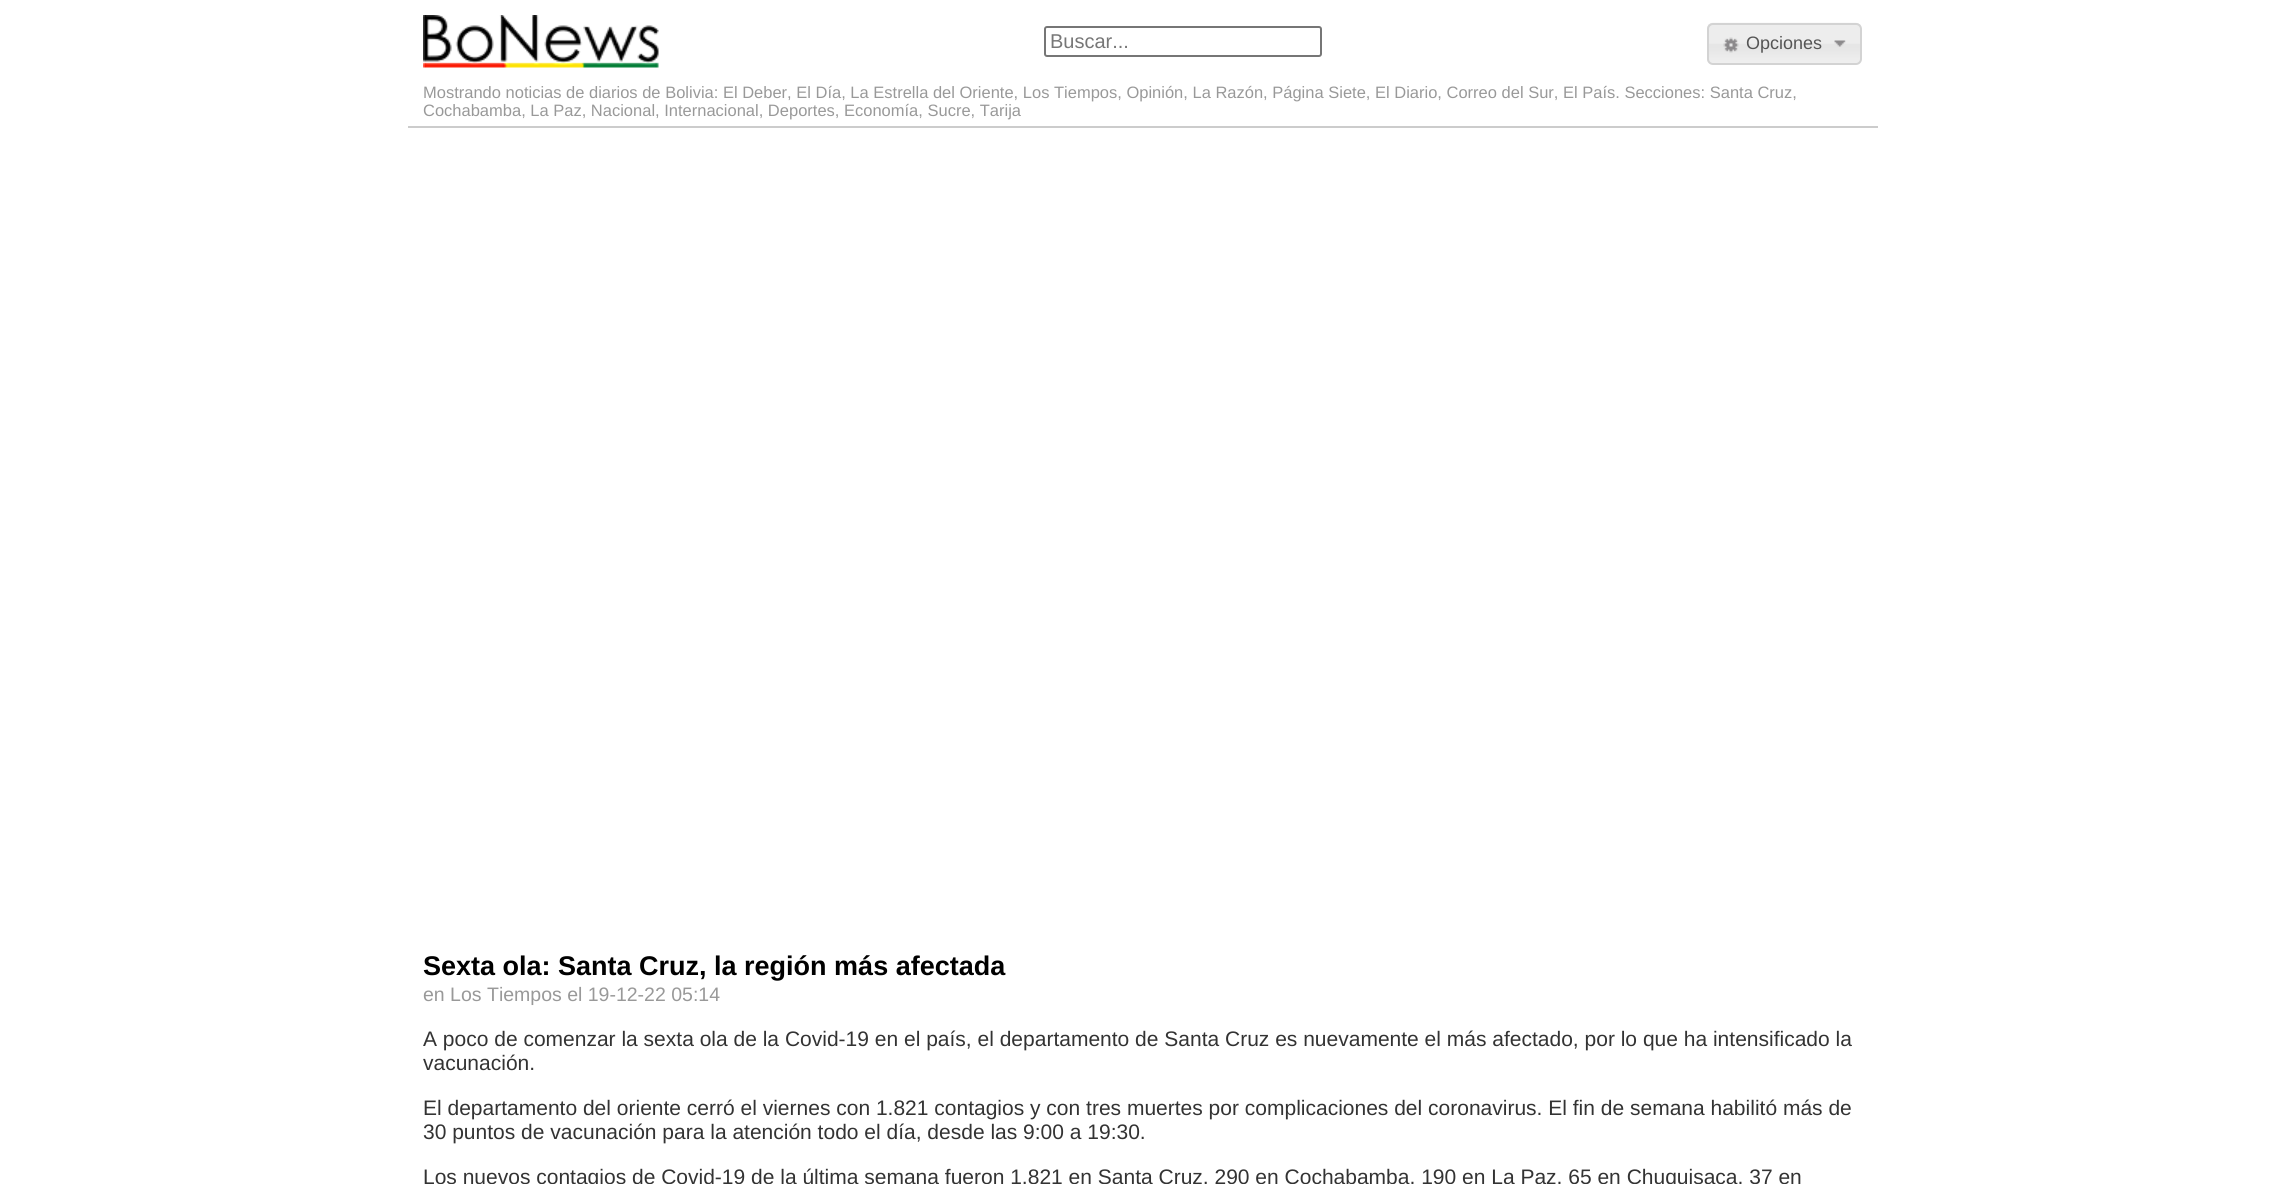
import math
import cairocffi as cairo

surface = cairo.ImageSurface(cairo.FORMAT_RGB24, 2286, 1184)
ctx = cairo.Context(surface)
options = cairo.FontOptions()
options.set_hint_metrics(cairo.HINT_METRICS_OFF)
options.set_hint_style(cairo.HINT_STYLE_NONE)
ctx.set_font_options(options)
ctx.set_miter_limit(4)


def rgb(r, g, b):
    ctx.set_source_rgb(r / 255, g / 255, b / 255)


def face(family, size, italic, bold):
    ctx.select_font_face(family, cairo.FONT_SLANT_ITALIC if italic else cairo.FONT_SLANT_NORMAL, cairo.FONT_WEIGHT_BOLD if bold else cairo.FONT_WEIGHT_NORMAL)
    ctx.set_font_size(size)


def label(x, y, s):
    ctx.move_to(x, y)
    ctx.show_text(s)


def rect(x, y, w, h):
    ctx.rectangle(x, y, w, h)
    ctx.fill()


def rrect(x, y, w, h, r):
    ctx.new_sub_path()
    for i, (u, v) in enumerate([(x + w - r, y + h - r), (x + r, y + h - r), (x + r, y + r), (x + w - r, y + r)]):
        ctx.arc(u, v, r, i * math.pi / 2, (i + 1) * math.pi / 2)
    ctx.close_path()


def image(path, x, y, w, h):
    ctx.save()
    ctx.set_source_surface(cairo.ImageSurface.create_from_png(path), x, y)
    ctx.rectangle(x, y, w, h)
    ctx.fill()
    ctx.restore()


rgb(255, 255, 255)
ctx.paint()
rgb(204, 204, 204)
rect(408, 126, 1470, 2)
image('image0.png', 423, 15, 236, 53)
rrect(1045, 27, 276, 29, 2)
rgb(118, 118, 118)
ctx.stroke()
face('Liberation Sans', 20, 0, 0)
rgb(119, 119, 119)
label(1050, 48, 'Buscar...')
image('image1.png', 1707, 22, 154, 42)
rrect(1708, 24, 153, 40, 5)
rgb(211, 211, 211)
ctx.stroke()
image('image2.png', 1723, 37, 16, 16)
face('Liberation Sans', 18, 0, 0)
rgb(85, 85, 85)
label(1746, 49, 'Opciones')
image('image3.png', 1834, 40, 12, 7)
face('Liberation Sans', 16.5, 0, 0)
rgb(153, 153, 153)
label(423, 98, 'Mostrando noticias de diarios de Bolivia: El Deber, El Día, La Estrella del Oriente, Los Tiempos, Opinión, La Razón, Página Siete, El Diario, Correo del Sur, El País. Secciones: Santa Cruz,')
label(423, 116, 'Cochabamba, La Paz, Nacional, Internacional, Deportes, Economía, Sucre, Tarija')
face('Liberation Sans', 27, 0, 1)
rgb(0, 0, 0)
label(423, 975, 'Sexta ola: Santa Cruz, la región más afectada')
face('Liberation Sans', 19.5, 0, 0)
rgb(153, 153, 153)
label(423, 1001, 'en Los Tiempos el 19-12-22 05:14')
face('Liberation Sans', 21, 0, 0)
rgb(51, 51, 51)
label(423, 1046, 'A poco de comenzar la sexta ola de la Covid-19 en el país, el departamento de Santa Cruz es nuevamente el más afectado, por lo que ha intensificado la')
label(423, 1070, 'vacunación.')
label(423, 1115, 'El departamento del oriente cerró el viernes con 1.821 contagios y con tres muertes por complicaciones del coronavirus. El fin de semana habilitó más de')
label(423, 1139, '30 puntos de vacunación para la atención todo el día, desde las 9:00 a 19:30.')
label(423, 1184, 'Los nuevos contagios de Covid-19 de la última semana fueron 1.821 en Santa Cruz, 290 en Cochabamba, 190 en La Paz, 65 en Chuquisaca, 37 en')
surface.write_to_png('render.png')
